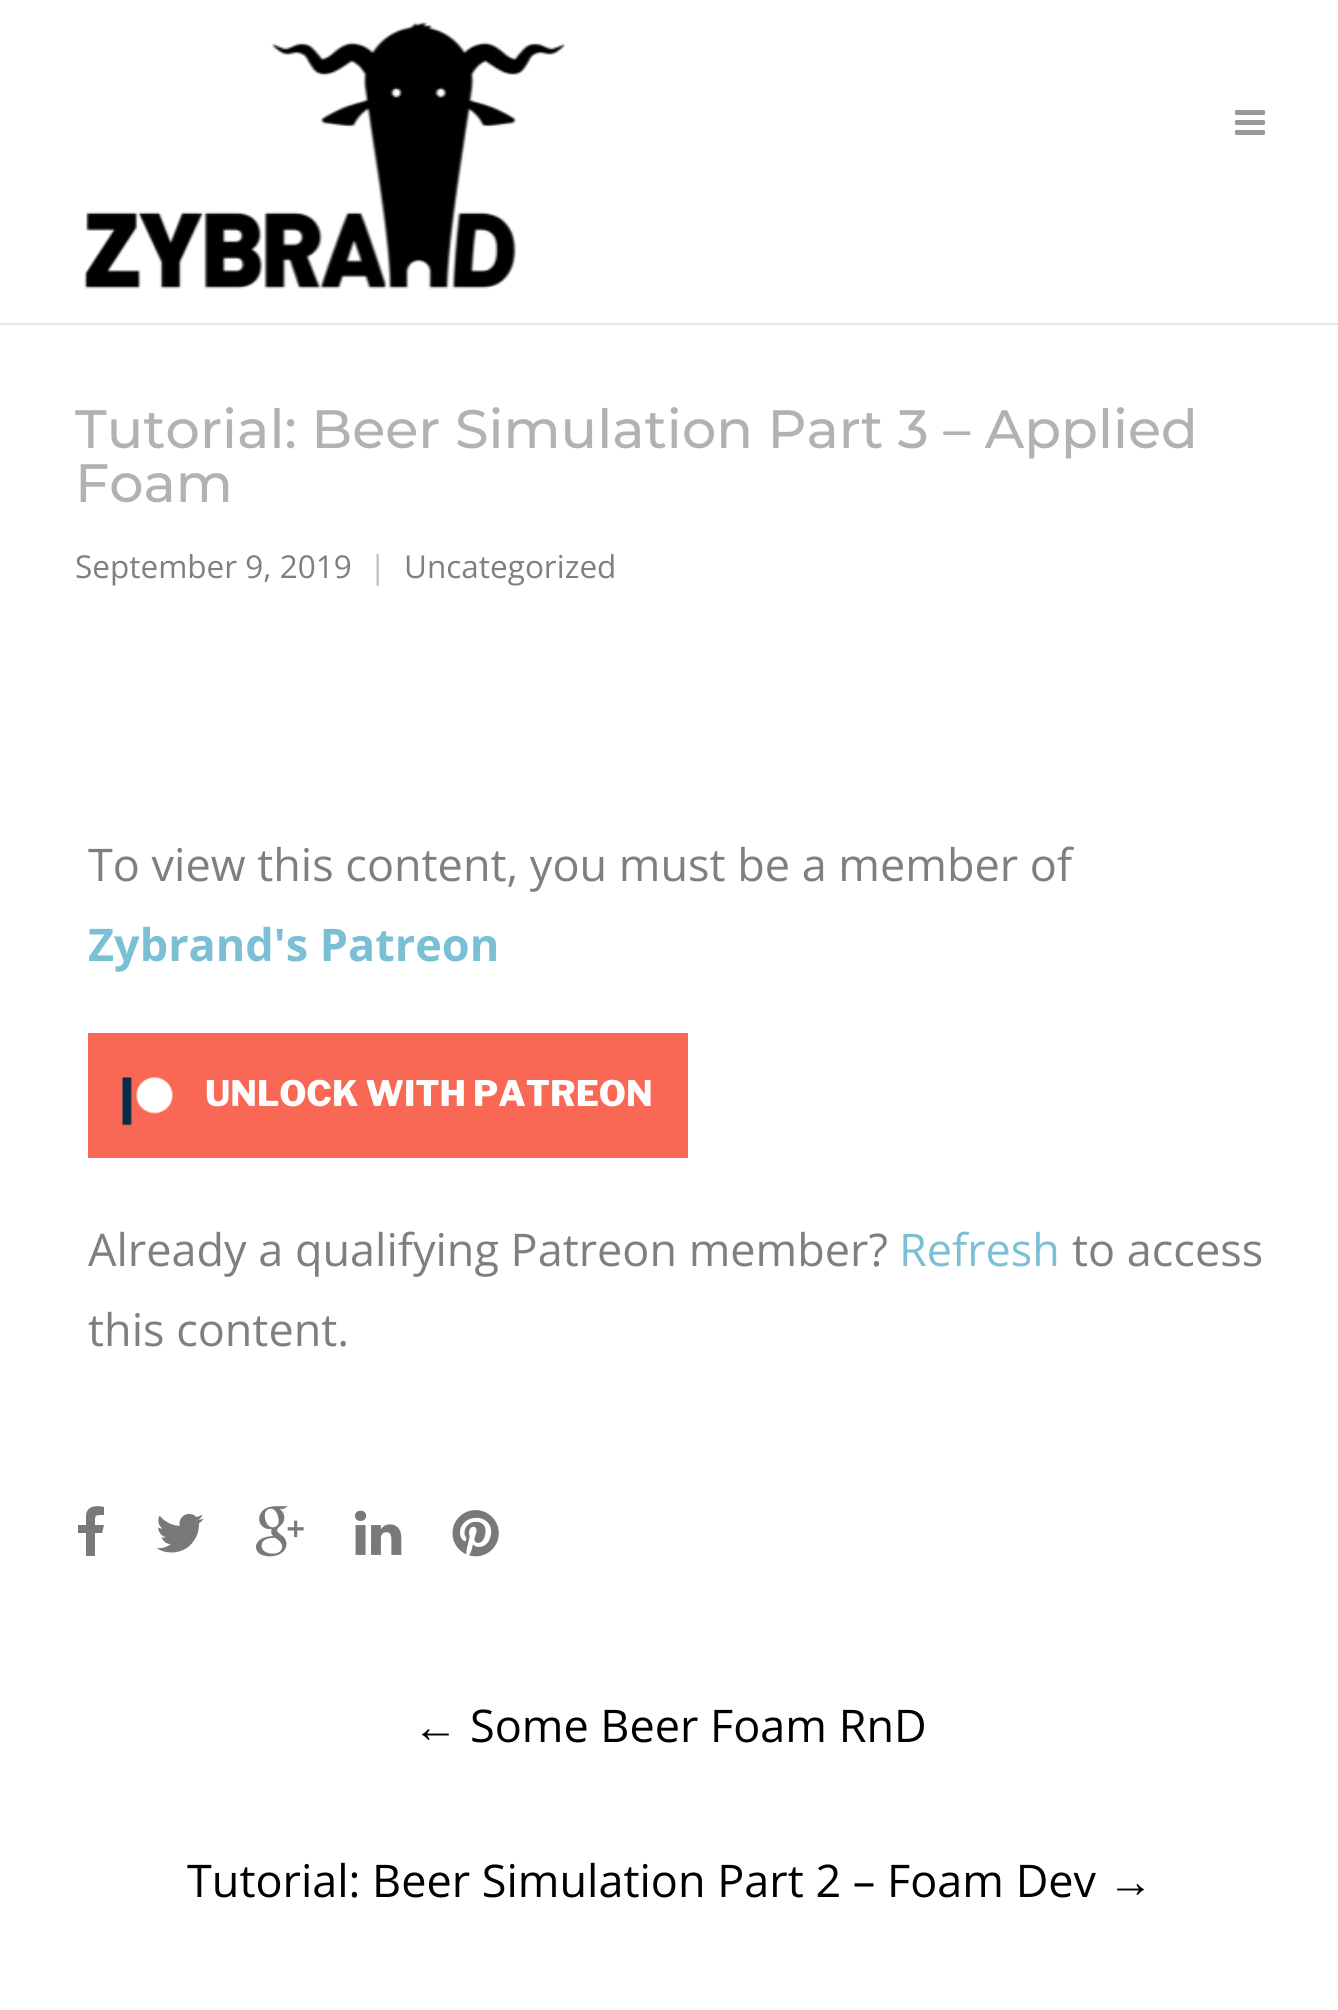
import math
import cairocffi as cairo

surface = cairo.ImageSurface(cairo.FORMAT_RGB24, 1338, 2010)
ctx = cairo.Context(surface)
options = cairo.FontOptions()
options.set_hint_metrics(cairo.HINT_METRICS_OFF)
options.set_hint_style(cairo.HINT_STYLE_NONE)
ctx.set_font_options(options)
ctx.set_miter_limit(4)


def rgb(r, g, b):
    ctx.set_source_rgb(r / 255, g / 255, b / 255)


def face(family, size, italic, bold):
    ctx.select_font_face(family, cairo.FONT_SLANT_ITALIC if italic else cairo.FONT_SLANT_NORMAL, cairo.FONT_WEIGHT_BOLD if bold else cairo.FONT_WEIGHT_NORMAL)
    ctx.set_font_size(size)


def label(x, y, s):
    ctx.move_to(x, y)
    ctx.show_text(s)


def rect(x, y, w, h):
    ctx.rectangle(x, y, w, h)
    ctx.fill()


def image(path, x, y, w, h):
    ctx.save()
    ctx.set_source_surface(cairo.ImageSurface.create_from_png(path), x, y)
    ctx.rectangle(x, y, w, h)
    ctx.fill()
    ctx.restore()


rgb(255, 255, 255)
ctx.paint()
rgb(230, 230, 230)
rect(0, 323, 1338, 2)
image('image0.png', 84, 22, 482, 267)
image('image1.png', 1235, 110, 30, 25)
face('Montserrat Medium', 54, 0, 0)
rgb(178, 178, 178)
label(75, 448, 'Tutorial: Beer Simulation Part 3 – Applied')
label(75, 502, 'Foam')
face('Open Sans', 31.5, 0, 0)
rgb(127, 127, 127)
label(75, 578, 'September 9, 2019')
rgb(189, 189, 189)
label(369, 578, '|')
rgb(127, 127, 127)
label(404, 578, 'Uncategorized')
face('Open Sans', 45, 0, 0)
label(88, 881, 'To view this content, you must be a member of')
face('Open Sans', 45, 0, 1)
rgb(122, 191, 211)
label(88, 961, 'Zybrand\'s Patreon')
rgb(249, 104, 84)
rect(88, 1033, 600, 125)
image('image2.png', 122, 1077, 51, 49)
face('Libre Franklin ExtraBold', 35, 0, 0)
rgb(255, 255, 255)
label(205, 1106, 'UNLOCK WITH PATREON')
face('Open Sans', 45, 0, 0)
rgb(127, 127, 127)
label(88, 1266, 'Already a qualifying Patreon member?')
rgb(122, 191, 211)
label(899, 1266, 'Refresh')
rgb(127, 127, 127)
label(1072, 1266, 'to access')
label(88, 1346, 'this content.')
rgb(121, 121, 121)
ctx.new_path()
ctx.move_to(78, 1533)
ctx.line_to(78, 1525)
ctx.line_to(86, 1525)
ctx.line_to(86, 1515)
ctx.curve_to(87, 1506, 96, 1505, 104, 1507)
ctx.line_to(104, 1515)
ctx.curve_to(94, 1515, 95, 1515, 95, 1525)
ctx.line_to(104, 1525)
ctx.line_to(102, 1533)
ctx.line_to(95, 1533)
ctx.line_to(95, 1556)
ctx.line_to(86, 1556)
ctx.line_to(86, 1533)
ctx.close_path()
ctx.fill()
image('image3.png', 156, 1513, 48, 40)
image('image4.png', 256, 1506, 48, 51)
image('image5.png', 355, 1510, 47, 45)
image('image6.png', 452, 1510, 47, 47)
face('Liberation Sans', 45, 0, 0)
rgb(0, 0, 0)
label(413, 1742, '←')
face('Open Sans', 45, 0, 0)
label(470, 1742, 'Some Beer Foam RnD')
label(187, 1897, 'Tutorial: Beer Simulation Part 2 – Foam Dev')
face('Liberation Sans', 45, 0, 0)
label(1108, 1897, '→')
surface.write_to_png('render.png')
